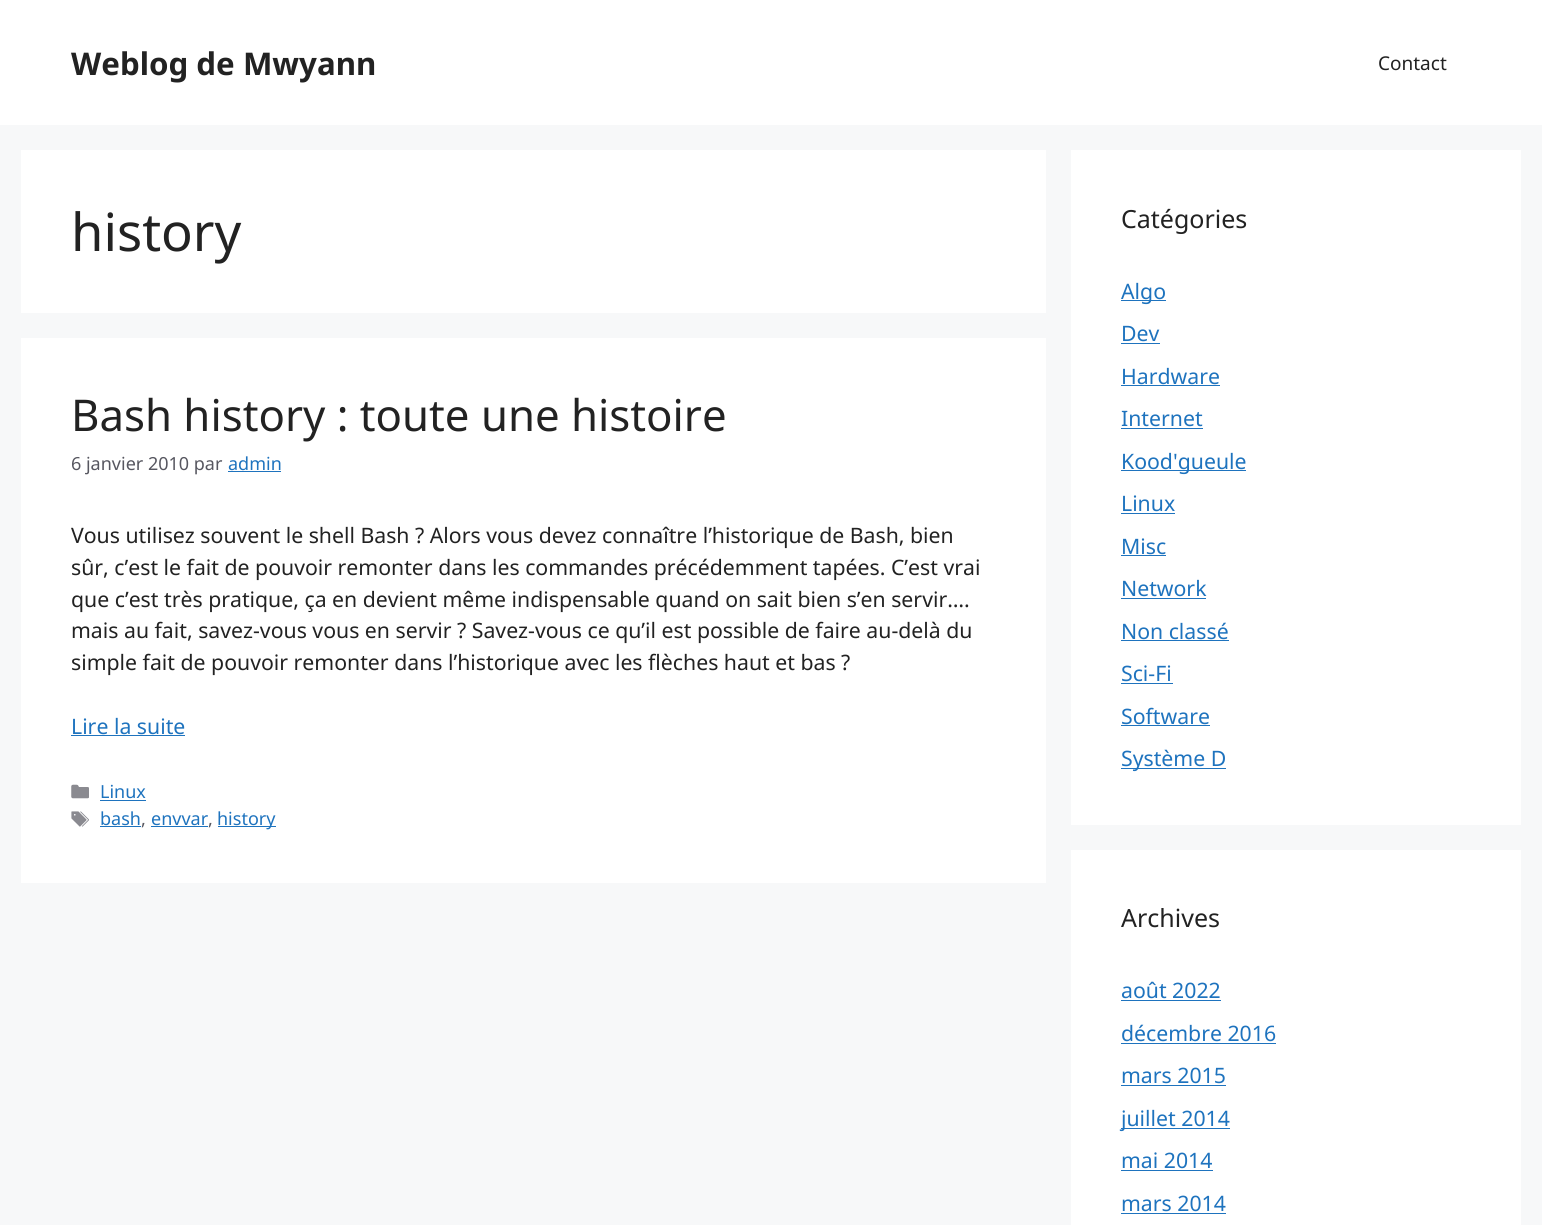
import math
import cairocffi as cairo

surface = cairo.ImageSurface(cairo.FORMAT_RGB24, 1542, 1225)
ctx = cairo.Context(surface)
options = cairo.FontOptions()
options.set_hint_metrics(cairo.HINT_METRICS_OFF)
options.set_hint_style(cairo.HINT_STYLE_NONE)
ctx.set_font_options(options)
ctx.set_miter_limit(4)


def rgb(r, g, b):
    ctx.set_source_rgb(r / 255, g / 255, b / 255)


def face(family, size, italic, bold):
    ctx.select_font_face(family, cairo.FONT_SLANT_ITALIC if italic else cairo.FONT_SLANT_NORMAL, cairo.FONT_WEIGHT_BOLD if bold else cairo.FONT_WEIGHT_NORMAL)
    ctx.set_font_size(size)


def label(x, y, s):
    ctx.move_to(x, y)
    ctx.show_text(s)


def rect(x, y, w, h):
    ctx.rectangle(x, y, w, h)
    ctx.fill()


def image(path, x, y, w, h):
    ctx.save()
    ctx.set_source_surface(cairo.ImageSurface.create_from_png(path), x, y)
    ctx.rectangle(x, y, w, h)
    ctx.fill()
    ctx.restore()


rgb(247, 248, 249)
ctx.paint()
rgb(255, 255, 255)
rect(0, 0, 1542, 125)
face('Noto Sans', 31.25, 0, 1)
rgb(34, 34, 34)
label(71, 75, 'Weblog de Mwyann')
face('Noto Sans', 19, 0, 0)
label(1378, 70, 'Contact')
rgb(255, 255, 255)
rect(21, 150, 1025, 163)
face('Noto Sans', 52.5, 0, 0)
rgb(34, 34, 34)
label(71, 251, 'history')
rgb(255, 255, 255)
rect(21, 338, 1025, 545)
face('Noto Sans', 43.75, 0, 0)
rgb(34, 34, 34)
label(71, 431, 'Bash history : toute une histoire')
face('Noto Sans', 18, 0, 0)
rgb(87, 87, 96)
label(71, 470, '6 janvier 2010 par')
rgb(30, 115, 190)
label(228, 470, 'admin')
rect(228, 471, 53, 1)
face('Noto Sans', 21.25, 0, 0)
rgb(34, 34, 34)
label(71, 543, 'Vous utilisez souvent le shell Bash ? Alors vous devez connaître l’historique de Bash, bien')
label(71, 575, 'sûr, c’est le fait de pouvoir remonter dans les commandes précédemment tapées. C’est vrai')
label(71, 607, 'que c’est très pratique, ça en devient même indispensable quand on sait bien s’en servir….')
label(71, 638, 'mais au fait, savez-vous vous en servir ? Savez-vous ce qu’il est possible de faire au-delà du')
label(71, 670, 'simple fait de pouvoir remonter dans l’historique avec les flèches haut et bas ?')
rgb(30, 115, 190)
label(71, 734, 'Lire la suite')
rect(71, 735, 114, 1)
image('image0.png', 71, 784, 18, 15)
face('Noto Sans', 18, 0, 0)
label(100, 798, 'Linux')
rect(100, 800, 46, 1)
image('image1.png', 71, 811, 18, 16)
label(100, 825, 'bash')
rect(100, 826, 41, 1)
rgb(87, 87, 96)
label(141, 825, ',')
rgb(30, 115, 190)
label(151, 825, 'envvar')
rect(151, 826, 57, 1)
rgb(87, 87, 96)
label(208, 825, ',')
rgb(30, 115, 190)
rect(218, 826, 58, 1)
label(217, 825, 'history')
rgb(255, 255, 255)
rect(1071, 150, 450, 675)
face('Noto Sans', 25, 0, 0)
rgb(34, 34, 34)
label(1121, 228, 'Catégories')
rgb(30, 115, 190)
rect(1121, 300, 45, 1)
face('Noto Sans', 21.25, 0, 0)
label(1121, 299, 'Algo')
label(1121, 341, 'Dev')
rect(1121, 343, 39, 1)
label(1121, 384, 'Hardware')
rect(1121, 385, 99, 1)
label(1121, 426, 'Internet')
rect(1121, 428, 82, 1)
rect(1121, 470, 125, 1)
label(1121, 469, 'Kood\'gueule')
label(1121, 511, 'Linux')
rect(1121, 513, 54, 1)
label(1121, 554, 'Misc')
rect(1121, 555, 45, 1)
label(1121, 596, 'Network')
rect(1121, 598, 85, 1)
label(1121, 639, 'Non classé')
rect(1121, 640, 108, 1)
label(1121, 681, 'Sci-Fi')
rect(1121, 683, 52, 1)
label(1121, 724, 'Software')
rect(1121, 725, 89, 1)
rect(1121, 768, 105, 1)
label(1121, 766, 'Système D')
rgb(255, 255, 255)
rect(1071, 850, 450, 375)
face('Noto Sans', 25, 0, 0)
rgb(34, 34, 34)
label(1121, 927, 'Archives')
face('Noto Sans', 21.25, 0, 0)
rgb(30, 115, 190)
label(1121, 998, 'août 2022')
rect(1121, 1000, 100, 1)
label(1121, 1041, 'décembre 2016')
rect(1121, 1043, 155, 1)
label(1121, 1083, 'mars 2015')
rect(1121, 1085, 105, 1)
rect(1121, 1128, 109, 1)
label(1121, 1126, 'juillet 2014')
label(1121, 1168, 'mai 2014')
rect(1121, 1170, 92, 1)
label(1121, 1211, 'mars 2014')
rect(1121, 1213, 105, 1)
surface.write_to_png('render.png')
